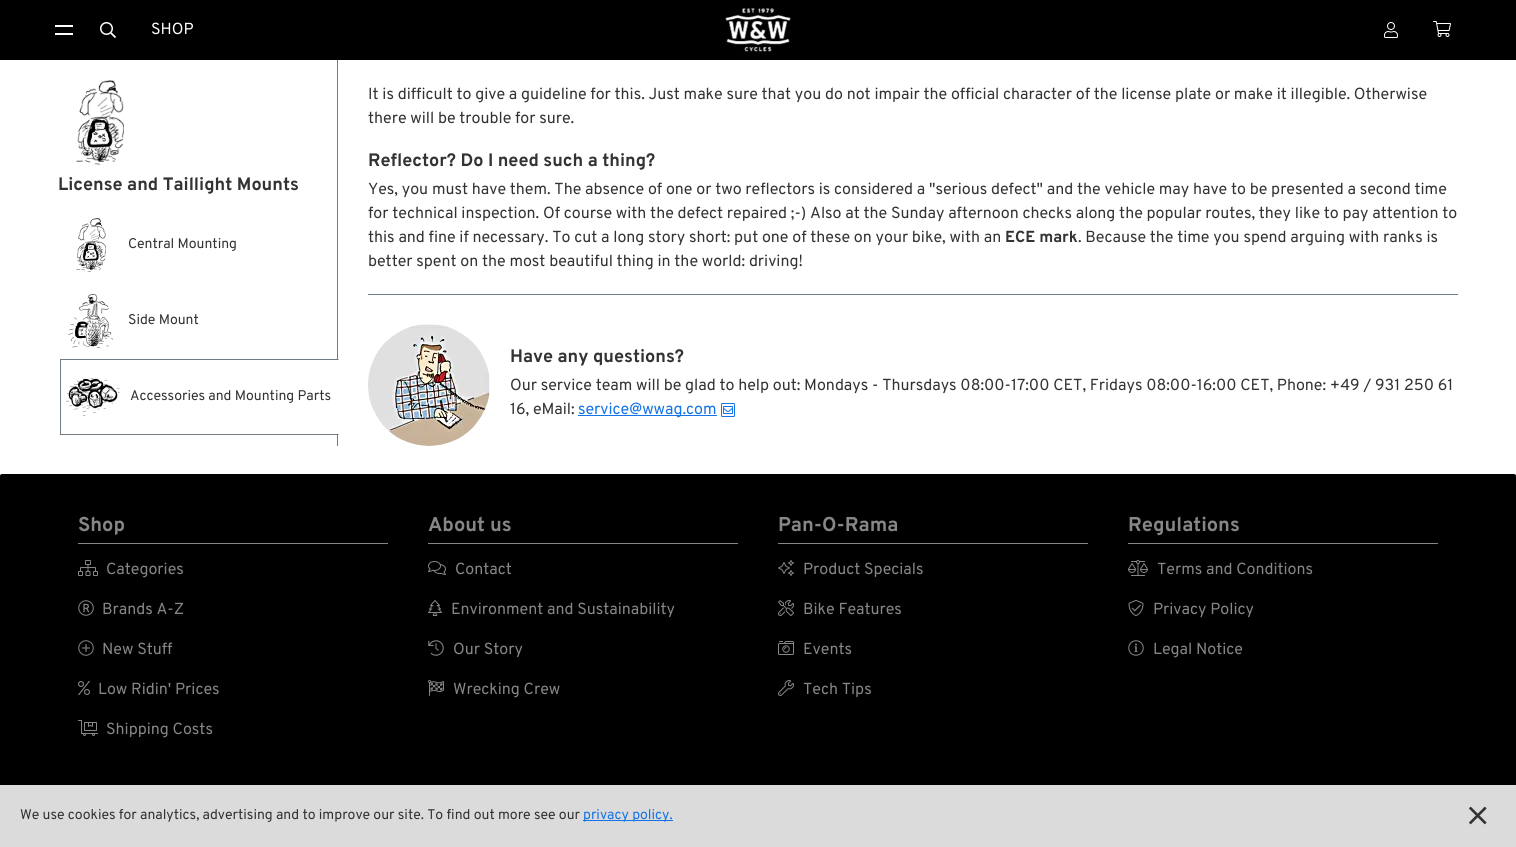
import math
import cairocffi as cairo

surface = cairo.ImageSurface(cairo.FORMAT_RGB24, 1516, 847)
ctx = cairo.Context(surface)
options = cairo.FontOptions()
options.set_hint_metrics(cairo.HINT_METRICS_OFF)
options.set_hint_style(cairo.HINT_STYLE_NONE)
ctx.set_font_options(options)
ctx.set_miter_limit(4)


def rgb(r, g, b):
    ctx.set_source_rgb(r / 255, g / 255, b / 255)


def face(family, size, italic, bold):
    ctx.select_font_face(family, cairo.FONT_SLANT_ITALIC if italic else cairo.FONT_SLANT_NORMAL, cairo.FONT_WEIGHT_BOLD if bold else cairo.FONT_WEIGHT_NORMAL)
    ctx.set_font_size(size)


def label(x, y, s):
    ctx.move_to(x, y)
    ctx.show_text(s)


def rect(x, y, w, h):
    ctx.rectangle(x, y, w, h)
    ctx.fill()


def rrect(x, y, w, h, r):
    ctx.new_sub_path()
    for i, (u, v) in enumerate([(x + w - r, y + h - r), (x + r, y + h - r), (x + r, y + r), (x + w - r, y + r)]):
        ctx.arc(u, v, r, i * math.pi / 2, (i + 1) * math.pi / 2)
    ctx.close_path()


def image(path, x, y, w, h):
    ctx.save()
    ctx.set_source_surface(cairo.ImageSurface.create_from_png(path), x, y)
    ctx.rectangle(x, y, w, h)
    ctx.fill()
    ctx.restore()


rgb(255, 255, 255)
ctx.paint()
rgb(0, 0, 0)
rect(0, 0, 1516, 60)
rgb(255, 255, 255)
rect(55, 25, 18, 2)
rect(55, 33, 18, 2)
image('image0.png', 100, 22, 16, 16)
face('Overpass', 16, 0, 0)
label(151, 34, 'SHOP')
image('image1.png', 725, 8, 66, 44)
image('image2.png', 1384, 22, 14, 16)
image('image3.png', 1433, 21, 18, 16)
rgb(114, 123, 129)
rect(337, 60, 1, 386)
image('image4.png', 76, 80, 48, 85)
face('Overpass', 18, 0, 1)
rgb(51, 51, 51)
label(58, 190, 'License and Taillight Mounts')
image('image5.png', 76, 218, 30, 54)
face('Overpass', 14, 0, 0)
label(128, 248, 'Central Mounting')
image('image6.png', 68, 294, 45, 54)
label(128, 324, 'Side Mount')
rgb(255, 255, 255)
rect(337, 359, 1, 76)
rgb(114, 123, 129)
ctx.new_path()
ctx.move_to(60, 359)
ctx.line_to(339, 359)
ctx.line_to(338, 360)
ctx.line_to(61, 360)
ctx.close_path()
ctx.fill()
ctx.new_path()
ctx.move_to(339, 435)
ctx.line_to(60, 435)
ctx.line_to(61, 434)
ctx.line_to(338, 434)
ctx.close_path()
ctx.fill()
rect(60, 359, 1, 76)
image('image7.png', 66, 378, 54, 38)
rgb(51, 51, 51)
label(130, 400, 'Accessories and Mounting Parts')
rgb(114, 123, 129)
rect(368, 294, 1090, 1)
face('Overpass', 16, 0, 0)
rgb(51, 51, 51)
label(368, 99, 'It is difficult to give a guideline for this. Just make sure that you do not impair the official character of the license plate or make it illegible. Otherwise')
label(368, 123, 'there will be trouble for sure.')
face('Overpass', 18, 0, 1)
label(368, 166, 'Reflector? Do I need such a thing?')
face('Overpass', 16, 0, 0)
label(368, 194, 'Yes, you must have them. The absence of one or two reflectors is considered a "serious defect" and the vehicle may have to be presented a second time')
label(368, 218, 'for technical inspection. Of course with the defect repaired ;-) Also at the Sunday afternoon checks along the popular routes, they like to pay attention to')
label(368, 242, 'this and fine if necessary. To cut a long story short: put one of these on your bike, with an')
face('Overpass', 16, 0, 1)
label(1005, 242, 'ECE mark')
face('Overpass', 16, 0, 0)
label(1078, 242, '. Because the time you spend arguing with ranks is')
label(368, 266, 'better spent on the most beautiful thing in the world: driving!')
image('image8.png', 368, 324, 122, 122)
face('Overpass', 18, 0, 1)
label(510, 362, 'Have any questions?')
face('Overpass', 16, 0, 0)
label(510, 390, 'Our service team will be glad to help out: Mondays - Thursdays 08:00-17:00 CET, Fridays 08:00-16:00 CET, Phone: +49 / 931 250 61')
label(510, 414, '16, eMail:')
rgb(20, 115, 230)
rect(578, 415, 139, 1)
label(578, 414, 'service@wwag.com')
image('image9.png', 721, 403, 14, 14)
rgb(0, 0, 0)
rrect(0, 474, 1516, 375, 2)
ctx.fill()
rgb(134, 134, 134)
rect(78, 543, 310, 1)
face('Overpass', 20, 0, 1)
label(78, 531, 'Shop')
image('image10.png', 78, 560, 20, 16)
face('Overpass', 16, 0, 0)
label(106, 574, 'Categories')
image('image11.png', 78, 600, 16, 16)
label(102, 614, 'Brands A-Z')
image('image12.png', 78, 640, 16, 16)
label(102, 654, 'New Stuff')
image('image13.png', 78, 681, 12, 14)
label(98, 694, 'Low Ridin\' Prices')
image('image14.png', 78, 720, 20, 16)
label(106, 734, 'Shipping Costs')
rect(428, 543, 310, 1)
face('Overpass', 20, 0, 1)
label(428, 531, 'About us')
image('image15.png', 428, 561, 18, 14)
face('Overpass', 16, 0, 0)
label(455, 574, 'Contact')
image('image16.png', 428, 600, 14, 16)
label(451, 614, 'Environment and Sustainability')
image('image17.png', 428, 640, 16, 16)
label(453, 654, 'Our Story')
image('image18.png', 428, 680, 16, 16)
label(453, 694, 'Wrecking Crew')
rect(778, 543, 310, 1)
face('Overpass', 20, 0, 1)
label(778, 531, 'Pan-O-Rama')
image('image19.png', 778, 560, 16, 16)
face('Overpass', 16, 0, 0)
label(803, 574, 'Product Specials')
image('image20.png', 778, 600, 16, 16)
label(803, 614, 'Bike Features')
image('image21.png', 778, 641, 16, 14)
label(803, 654, 'Events')
image('image22.png', 778, 680, 16, 16)
label(803, 694, 'Tech Tips')
rect(1128, 543, 310, 1)
face('Overpass', 20, 0, 1)
label(1128, 531, 'Regulations')
image('image23.png', 1128, 560, 20, 16)
face('Overpass', 16, 0, 0)
label(1157, 574, 'Terms and Conditions')
image('image24.png', 1128, 600, 16, 16)
label(1153, 614, 'Privacy Policy')
image('image25.png', 1128, 640, 16, 16)
label(1153, 654, 'Legal Notice')
rgb(219, 219, 219)
rect(0, 785, 1516, 62)
face('Overpass', 14, 0, 0)
rgb(51, 51, 51)
label(20, 819, 'We use cookies for analytics, advertising and to improve our site. To find out more see our')
rgb(20, 115, 230)
rect(583, 820, 90, 1)
label(583, 819, 'privacy policy.')
image('image26.png', 1469, 806, 18, 19)
surface.write_to_png('render.png')
